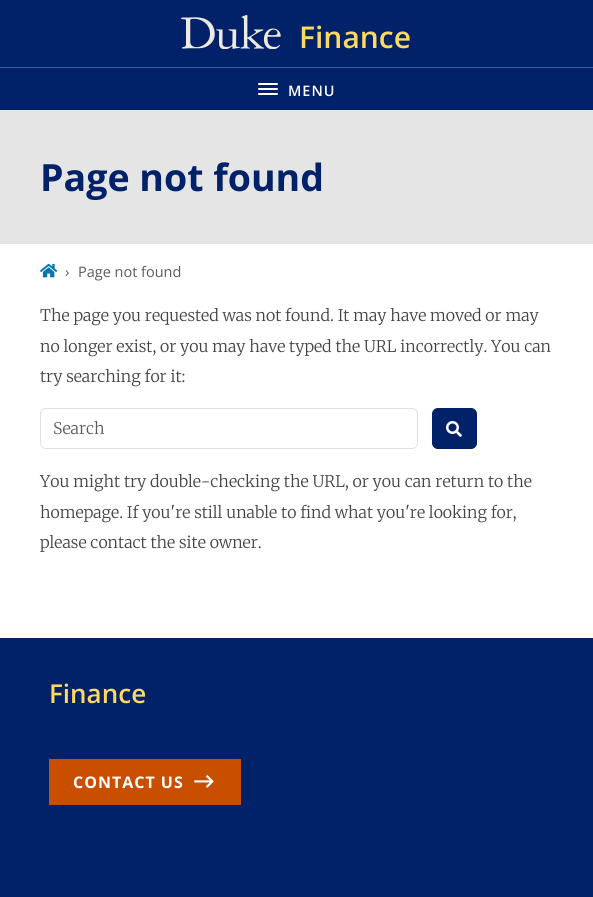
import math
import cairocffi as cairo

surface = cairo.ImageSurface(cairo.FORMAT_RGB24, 593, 897)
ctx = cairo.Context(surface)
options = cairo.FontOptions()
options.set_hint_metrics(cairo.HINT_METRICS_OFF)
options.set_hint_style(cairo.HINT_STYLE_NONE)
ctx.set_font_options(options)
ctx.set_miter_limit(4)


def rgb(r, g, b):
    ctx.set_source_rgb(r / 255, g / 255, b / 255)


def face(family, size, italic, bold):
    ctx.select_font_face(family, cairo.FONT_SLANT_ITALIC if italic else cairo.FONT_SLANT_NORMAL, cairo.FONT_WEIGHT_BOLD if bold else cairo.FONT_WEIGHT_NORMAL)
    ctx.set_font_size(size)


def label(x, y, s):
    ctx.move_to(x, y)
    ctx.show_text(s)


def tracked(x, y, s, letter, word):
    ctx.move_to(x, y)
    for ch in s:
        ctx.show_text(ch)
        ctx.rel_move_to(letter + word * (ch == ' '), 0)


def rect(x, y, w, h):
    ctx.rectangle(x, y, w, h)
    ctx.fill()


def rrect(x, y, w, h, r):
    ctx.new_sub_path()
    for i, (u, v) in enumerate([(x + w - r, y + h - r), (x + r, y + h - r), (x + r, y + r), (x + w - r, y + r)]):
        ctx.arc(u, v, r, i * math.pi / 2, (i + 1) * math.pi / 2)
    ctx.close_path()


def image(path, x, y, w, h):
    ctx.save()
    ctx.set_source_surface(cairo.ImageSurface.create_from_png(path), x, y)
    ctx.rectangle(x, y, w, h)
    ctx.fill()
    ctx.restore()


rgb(255, 255, 255)
ctx.paint()
rgb(1, 33, 105)
rect(0, 0, 593, 110)
image('image0.png', 181, 15, 100, 34)
face('Open Sans SemiBold', 30, 0, 0)
rgb(255, 217, 96)
label(299, 48, 'Finance')
rgb(5, 119, 177)
rect(0, 67, 593, 1)
rgb(255, 255, 255)
rrect(258, 88, 20, 2, 1)
ctx.fill()
rrect(258, 83, 20, 2, 1)
ctx.fill()
rrect(258, 93, 20, 2, 1)
ctx.fill()
face('Open Sans SemiBold', 14.5, 0, 0)
tracked(288, 96, 'MENU', 1, 0)
rgb(229, 229, 229)
rect(0, 110, 593, 134)
face('Open Sans', 37.5, 0, 1)
rgb(1, 33, 105)
label(40, 191, 'Page not found')
image('image1.png', 40, 263, 17, 15)
face('Open Sans', 14.5, 0, 0)
rgb(89, 92, 95)
label(65, 277, '›')
label(78, 277, 'Page not found')
face('Merriweather Light', 16, 0, 0)
rgb(70, 67, 67)
label(40, 321, 'The page you requested was not found. It may have moved or may')
label(40, 352, 'no longer exist, or you may have typed the URL incorrectly. You can')
label(40, 382, 'try searching for it:')
rrect(40.5, 408.5, 377, 40, 5.5)
rgb(222, 226, 230)
ctx.set_line_width(1)
ctx.stroke()
rgb(89, 92, 95)
label(53, 434, 'Search')
rgb(1, 33, 105)
rrect(432.5, 408.5, 44, 40, 5.5)
ctx.fill_preserve()
ctx.stroke()
image('image2.png', 446, 421, 16, 16)
rgb(70, 67, 67)
label(40, 487, 'You might try double-checking the URL, or you can return to the')
label(40, 518, 'homepage. If you\'re still unable to find what you\'re looking for,')
label(40, 548, 'please contact the site owner.')
rgb(1, 33, 105)
rect(0, 638, 593, 259)
face('Open Sans SemiBold', 26, 0, 0)
rgb(255, 217, 96)
label(49, 703, 'Finance')
rgb(200, 78, 0)
rect(49, 759, 192, 46)
face('Open Sans', 16, 0, 1)
rgb(255, 255, 255)
tracked(73, 788, 'CONTACT US', 1, 0)
image('image3.png', 194, 775, 20, 13)
surface.write_to_png('render.png')
